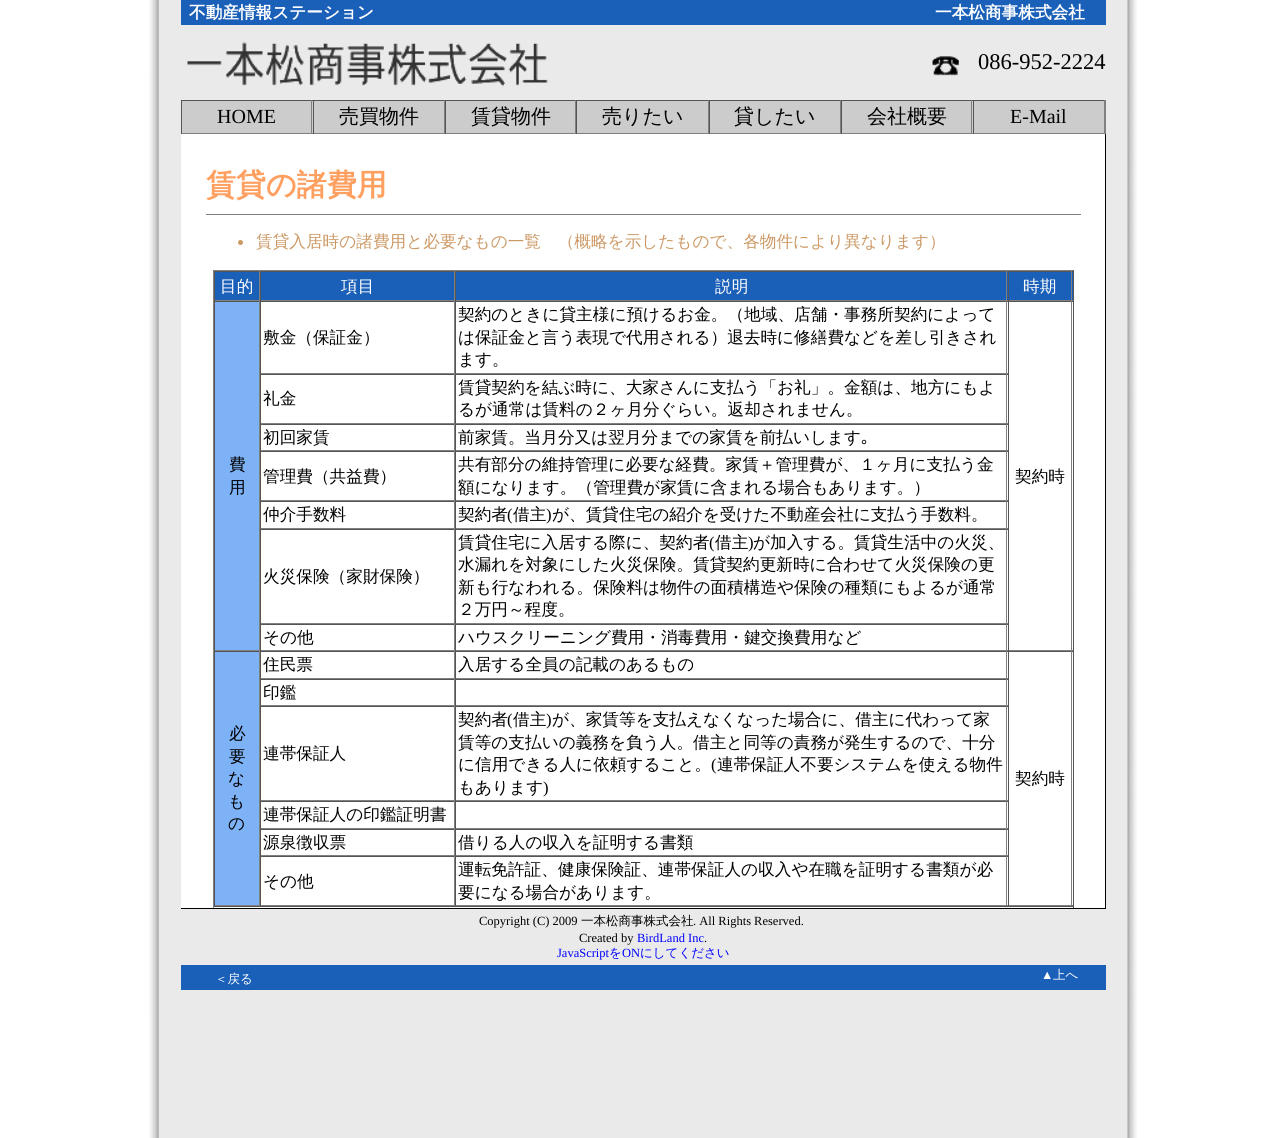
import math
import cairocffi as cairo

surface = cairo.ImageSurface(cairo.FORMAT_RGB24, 1286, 1138)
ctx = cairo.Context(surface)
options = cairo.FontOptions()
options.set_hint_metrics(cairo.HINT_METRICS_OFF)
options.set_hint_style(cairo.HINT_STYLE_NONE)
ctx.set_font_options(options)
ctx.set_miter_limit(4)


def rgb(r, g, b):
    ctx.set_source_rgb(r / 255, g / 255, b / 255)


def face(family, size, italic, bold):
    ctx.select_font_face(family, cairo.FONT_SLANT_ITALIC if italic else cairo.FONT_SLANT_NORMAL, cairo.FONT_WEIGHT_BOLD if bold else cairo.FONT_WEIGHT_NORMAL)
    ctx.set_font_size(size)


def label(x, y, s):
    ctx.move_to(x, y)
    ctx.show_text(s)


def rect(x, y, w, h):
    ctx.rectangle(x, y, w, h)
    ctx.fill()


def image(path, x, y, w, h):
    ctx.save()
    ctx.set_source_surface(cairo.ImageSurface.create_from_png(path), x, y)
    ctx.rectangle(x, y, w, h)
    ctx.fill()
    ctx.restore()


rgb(255, 255, 255)
ctx.paint()
image('image0.png', 149, 0, 988, 1138)
rgb(27, 96, 184)
rect(181, 0, 925, 25)
face('WenQuanYi Zen Hei', 16.65, 0, 1)
rgb(255, 255, 255)
label(189, 18, '不動産情報ステーション')
label(935, 18, '一本松商事株式会社')
image('image1.png', 187, 42, 361, 45)
image('image2.png', 932, 56, 27, 20)
face('Liberation Serif', 22.5, 0, 0)
rgb(0, 0, 0)
label(978, 69, '086-952-2224')
rgb(128, 128, 128)
rect(1105, 100, 1, 34)
rgb(204, 204, 204)
rect(182, 101, 131, 32)
rgb(85, 85, 85)
rect(181, 100, 924, 1)
rgb(128, 128, 128)
rect(311, 100, 1, 34)
rect(181, 133, 132, 1)
rgb(85, 85, 85)
rect(181, 100, 1, 34)
face('Liberation Serif', 20, 0, 0)
rgb(0, 0, 0)
label(217, 123, 'HOME')
rgb(204, 204, 204)
rect(314, 101, 130, 32)
rgb(128, 128, 128)
rect(444, 100, 1, 34)
rect(313, 133, 132, 1)
rgb(85, 85, 85)
rect(313, 100, 1, 34)
face('WenQuanYi Zen Hei Medium', 20, 0, 0)
rgb(0, 0, 0)
label(339, 123, '売買物件')
rgb(204, 204, 204)
rect(446, 101, 129, 32)
rgb(128, 128, 128)
rect(575, 100, 1, 34)
rect(445, 133, 131, 1)
rgb(85, 85, 85)
rect(445, 100, 1, 34)
rgb(0, 0, 0)
label(471, 123, '賃貸物件')
rgb(204, 204, 204)
rect(577, 101, 131, 32)
rgb(128, 128, 128)
rect(708, 100, 1, 34)
rect(576, 133, 133, 1)
rgb(85, 85, 85)
rect(576, 100, 1, 34)
rgb(0, 0, 0)
label(602, 123, '売りたい')
rgb(204, 204, 204)
rect(710, 101, 130, 32)
rgb(128, 128, 128)
rect(840, 100, 1, 34)
rect(709, 133, 132, 1)
rgb(85, 85, 85)
rect(709, 100, 1, 34)
rgb(0, 0, 0)
label(734, 123, '貸したい')
rgb(204, 204, 204)
rect(842, 101, 131, 32)
rgb(128, 128, 128)
rect(971, 100, 1, 34)
rect(841, 133, 132, 1)
rgb(85, 85, 85)
rect(841, 100, 1, 34)
rgb(0, 0, 0)
label(867, 123, '会社概要')
rgb(204, 204, 204)
rect(974, 101, 130, 32)
rgb(128, 128, 128)
rect(1104, 100, 1, 34)
rect(973, 133, 132, 1)
rgb(85, 85, 85)
rect(973, 100, 1, 34)
face('Liberation Serif', 20, 0, 0)
rgb(0, 0, 0)
label(1010, 123, 'E-Mail')
rgb(255, 255, 255)
rect(181, 134, 924, 774)
face('WenQuanYi Zen Hei', 30, 0, 1)
rgb(255, 160, 97)
label(206, 195, '賃貸の諸費用')
rgb(128, 128, 128)
rect(206, 214, 875, 1)
rgb(204, 153, 102)
ctx.new_path()
ctx.arc(240.5, 242.5, 2.5, 0, 2 * math.pi)
ctx.fill()
face('WenQuanYi Zen Hei Medium', 16.65, 0, 0)
label(256, 247, '賃貸入居時の諸費用と必要なもの一覧　（概略を示したもので、各物件により異なります）')
rgb(128, 128, 128)
rect(213, 270, 861, 1)
rgb(85, 85, 85)
rect(1073, 270, 1, 638)
rect(213, 906, 861, 1)
rgb(128, 128, 128)
rect(213, 270, 1, 638)
rgb(27, 96, 184)
rect(215, 272, 44, 28)
rgb(85, 85, 85)
rect(214, 271, 859, 1)
rgb(128, 128, 128)
rect(259, 271, 1, 30)
rect(214, 300, 46, 1)
rgb(85, 85, 85)
rect(214, 271, 1, 30)
rgb(255, 255, 255)
label(220, 292, '目的')
rgb(27, 96, 184)
rect(261, 272, 193, 28)
rgb(128, 128, 128)
rect(454, 271, 1, 30)
rect(260, 300, 195, 1)
rgb(85, 85, 85)
rect(260, 271, 1, 30)
rgb(255, 255, 255)
label(341, 292, '項目')
rgb(27, 96, 184)
rect(456, 272, 552, 28)
rgb(128, 128, 128)
rect(1006, 271, 1, 30)
rect(455, 300, 553, 1)
rgb(85, 85, 85)
rect(455, 271, 1, 30)
rgb(255, 255, 255)
label(715, 292, '説明')
rgb(27, 96, 184)
rect(1009, 272, 64, 28)
rgb(128, 128, 128)
rect(1071, 271, 1, 30)
rect(1008, 300, 65, 1)
rgb(85, 85, 85)
rect(1008, 271, 1, 30)
rgb(255, 255, 255)
label(1023, 292, '時期')
rgb(85, 85, 85)
rect(214, 301, 859, 1)
rgb(128, 128, 128)
rect(454, 301, 1, 73)
rect(260, 373, 195, 1)
rgb(85, 85, 85)
rect(260, 301, 1, 73)
rgb(0, 0, 0)
label(263, 343, '敷金（保証金）')
rgb(128, 128, 128)
rect(1006, 301, 1, 73)
rect(455, 373, 553, 1)
rgb(85, 85, 85)
rect(455, 301, 1, 73)
rgb(0, 0, 0)
label(458, 320, '契約のときに貸主様に預けるお金。（地域、店舗・事務所契約によって')
label(458, 343, 'は保証金と言う表現で代用される）退去時に修繕費などを差し引きされ')
label(458, 365, 'ます。')
rgb(126, 178, 246)
rect(215, 302, 44, 348)
rgb(128, 128, 128)
rect(259, 301, 1, 350)
rect(214, 650, 46, 1)
rgb(85, 85, 85)
rect(214, 301, 1, 350)
rgb(0, 0, 0)
label(229, 470, '費')
label(229, 493, '用')
rgb(128, 128, 128)
rect(1071, 301, 1, 350)
rect(1008, 650, 65, 1)
rgb(85, 85, 85)
rect(1008, 301, 1, 350)
rgb(0, 0, 0)
label(1015, 482, '契約時')
rgb(85, 85, 85)
rect(260, 374, 748, 1)
rgb(128, 128, 128)
rect(454, 374, 1, 50)
rect(260, 423, 195, 1)
rgb(85, 85, 85)
rect(260, 374, 1, 50)
rgb(0, 0, 0)
label(263, 404, '礼金')
rgb(128, 128, 128)
rect(1006, 374, 1, 50)
rect(455, 423, 553, 1)
rgb(85, 85, 85)
rect(455, 374, 1, 50)
rgb(0, 0, 0)
label(458, 393, '賃貸契約を結ぶ時に、大家さんに支払う「お礼」。金額は、地方にもよ')
label(458, 415, 'るが通常は賃料の２ヶ月分ぐらい。返却されません。')
rgb(85, 85, 85)
rect(260, 424, 748, 1)
rgb(128, 128, 128)
rect(454, 424, 1, 27)
rect(260, 450, 195, 1)
rgb(85, 85, 85)
rect(260, 424, 1, 27)
rgb(0, 0, 0)
label(263, 443, '初回家賃')
rgb(128, 128, 128)
rect(1006, 424, 1, 27)
rect(455, 450, 553, 1)
rgb(85, 85, 85)
rect(455, 424, 1, 27)
rgb(0, 0, 0)
label(458, 443, '前家賃。当月分又は翌月分までの家賃を前払いします')
face('IPAPGothic', 16.65, 0, 0)
label(861, 443, '｡')
rgb(85, 85, 85)
rect(260, 451, 748, 1)
rgb(128, 128, 128)
rect(454, 451, 1, 50)
rect(260, 500, 195, 1)
rgb(85, 85, 85)
rect(260, 451, 1, 50)
face('WenQuanYi Zen Hei Medium', 16.65, 0, 0)
rgb(0, 0, 0)
label(263, 482, '管理費（共益費）')
rgb(128, 128, 128)
rect(1006, 451, 1, 50)
rect(455, 500, 553, 1)
rgb(85, 85, 85)
rect(455, 451, 1, 50)
rgb(0, 0, 0)
label(458, 470, '共有部分の維持管理に必要な経費。家賃＋管理費が、１ヶ月に支払う金')
label(458, 493, '額になります。（管理費が家賃に含まれる場合もあります。）')
rgb(85, 85, 85)
rect(260, 501, 748, 1)
rgb(128, 128, 128)
rect(454, 501, 1, 28)
rect(260, 528, 195, 1)
rgb(85, 85, 85)
rect(260, 501, 1, 28)
rgb(0, 0, 0)
label(263, 520, '仲介手数料')
rgb(128, 128, 128)
rect(1006, 501, 1, 28)
rect(455, 528, 553, 1)
rgb(85, 85, 85)
rect(455, 501, 1, 28)
rgb(0, 0, 0)
label(458, 520, '契約者')
face('Liberation Serif', 16.65, 0, 0)
label(507, 520, '(')
face('WenQuanYi Zen Hei Medium', 16.65, 0, 0)
label(513, 520, '借主')
face('Liberation Serif', 16.65, 0, 0)
label(546, 520, ')')
face('WenQuanYi Zen Hei Medium', 16.65, 0, 0)
label(552, 520, 'が、賃貸住宅の紹介を受けた不動産会社に支払う手数料。')
rgb(85, 85, 85)
rect(260, 529, 748, 1)
rgb(128, 128, 128)
rect(454, 529, 1, 95)
rect(260, 623, 195, 1)
rgb(85, 85, 85)
rect(260, 529, 1, 95)
rgb(0, 0, 0)
label(263, 582, '火災保険（家財保険）')
rgb(128, 128, 128)
rect(1006, 529, 1, 95)
rect(455, 623, 553, 1)
rgb(85, 85, 85)
rect(455, 529, 1, 95)
rgb(0, 0, 0)
label(458, 548, '賃貸住宅に入居する際に、契約者')
face('Liberation Serif', 16.65, 0, 0)
label(709, 548, '(')
face('WenQuanYi Zen Hei Medium', 16.65, 0, 0)
label(715, 548, '借主')
face('Liberation Serif', 16.65, 0, 0)
label(748, 548, ')')
face('WenQuanYi Zen Hei Medium', 16.65, 0, 0)
label(753, 548, 'が加入する。賃貸生活中の火災、')
label(458, 570, '水漏れを対象にした火災保険。賃貸契約更新時に合わせて火災保険の更')
label(458, 593, '新も行なわれる。保険料は物件の面積構造や保険の種類にもよるが通常')
label(458, 615, '２万円～程度。')
rgb(85, 85, 85)
rect(260, 624, 748, 1)
rgb(128, 128, 128)
rect(454, 624, 1, 27)
rect(260, 650, 195, 1)
rgb(85, 85, 85)
rect(260, 624, 1, 27)
rgb(0, 0, 0)
label(263, 643, 'その他')
rgb(128, 128, 128)
rect(1006, 624, 1, 27)
rect(455, 650, 553, 1)
rgb(85, 85, 85)
rect(455, 624, 1, 27)
rgb(0, 0, 0)
label(458, 643, 'ハウスクリーニング費用・消毒費用・鍵交換費用など')
rgb(85, 85, 85)
rect(214, 651, 859, 1)
rgb(128, 128, 128)
rect(454, 651, 1, 28)
rect(260, 678, 195, 1)
rgb(85, 85, 85)
rect(260, 651, 1, 28)
rgb(0, 0, 0)
label(263, 670, '住民票')
rgb(128, 128, 128)
rect(1006, 651, 1, 28)
rect(455, 678, 553, 1)
rgb(85, 85, 85)
rect(455, 651, 1, 28)
rgb(0, 0, 0)
label(458, 670, '入居する全員の記載のあるもの')
rgb(126, 178, 246)
rect(215, 652, 44, 253)
rgb(128, 128, 128)
rect(259, 651, 1, 255)
rect(214, 905, 46, 1)
rgb(85, 85, 85)
rect(214, 651, 1, 255)
rgb(0, 0, 0)
label(229, 739, '必')
label(229, 762, '要')
label(228, 784, 'な')
label(228, 807, 'も')
label(228, 829, 'の')
rgb(128, 128, 128)
rect(1071, 651, 1, 255)
rect(1008, 905, 65, 1)
rgb(85, 85, 85)
rect(1008, 651, 1, 255)
rgb(0, 0, 0)
label(1015, 784, '契約時')
rgb(85, 85, 85)
rect(260, 679, 748, 1)
rgb(128, 128, 128)
rect(454, 679, 1, 27)
rect(260, 705, 195, 1)
rgb(85, 85, 85)
rect(260, 679, 1, 27)
rgb(0, 0, 0)
label(263, 698, '印鑑')
rgb(128, 128, 128)
rect(1006, 679, 1, 27)
rect(455, 705, 553, 1)
rgb(85, 85, 85)
rect(455, 679, 1, 27)
rect(260, 706, 748, 1)
rgb(128, 128, 128)
rect(454, 706, 1, 95)
rect(260, 800, 195, 1)
rgb(85, 85, 85)
rect(260, 706, 1, 95)
rgb(0, 0, 0)
label(263, 759, '連帯保証人')
rgb(128, 128, 128)
rect(1006, 706, 1, 95)
rect(455, 800, 553, 1)
rgb(85, 85, 85)
rect(455, 706, 1, 95)
rgb(0, 0, 0)
label(458, 725, '契約者')
face('Liberation Serif', 16.65, 0, 0)
label(507, 725, '(')
face('WenQuanYi Zen Hei Medium', 16.65, 0, 0)
label(513, 725, '借主')
face('Liberation Serif', 16.65, 0, 0)
label(546, 725, ')')
face('WenQuanYi Zen Hei Medium', 16.65, 0, 0)
label(552, 725, 'が、家賃等を支払えなくなった場合に、借主に代わって家')
label(458, 748, '賃等の支払いの義務を負う人。借主と同等の責務が発生するので、十分')
label(458, 770, 'に信用できる人に依頼すること。')
face('Liberation Serif', 16.65, 0, 0)
label(711, 770, '(')
face('WenQuanYi Zen Hei Medium', 16.65, 0, 0)
label(717, 770, '連帯保証人不要システムを使える物件')
label(458, 793, 'もあります')
face('Liberation Serif', 16.65, 0, 0)
label(543, 793, ')')
rgb(85, 85, 85)
rect(260, 801, 748, 1)
rgb(128, 128, 128)
rect(454, 801, 1, 28)
rect(260, 828, 195, 1)
rgb(85, 85, 85)
rect(260, 801, 1, 28)
face('WenQuanYi Zen Hei Medium', 16.65, 0, 0)
rgb(0, 0, 0)
label(263, 820, '連帯保証人の印鑑証明書')
rgb(128, 128, 128)
rect(1006, 801, 1, 28)
rect(455, 828, 553, 1)
rgb(85, 85, 85)
rect(455, 801, 1, 28)
rect(260, 829, 748, 1)
rgb(128, 128, 128)
rect(454, 829, 1, 27)
rect(260, 855, 195, 1)
rgb(85, 85, 85)
rect(260, 829, 1, 27)
rgb(0, 0, 0)
label(263, 848, '源泉徴収票')
rgb(128, 128, 128)
rect(1006, 829, 1, 27)
rect(455, 855, 553, 1)
rgb(85, 85, 85)
rect(455, 829, 1, 27)
rgb(0, 0, 0)
label(458, 848, '借りる人の収入を証明する書類')
rgb(85, 85, 85)
rect(260, 856, 748, 1)
rgb(128, 128, 128)
rect(454, 856, 1, 50)
rect(260, 905, 195, 1)
rgb(85, 85, 85)
rect(260, 856, 1, 50)
rgb(0, 0, 0)
label(263, 887, 'その他')
rgb(128, 128, 128)
rect(1006, 856, 1, 50)
rect(455, 905, 553, 1)
rgb(85, 85, 85)
rect(455, 856, 1, 50)
rgb(0, 0, 0)
label(458, 875, '運転免許証、健康保険証、連帯保証人の収入や在職を証明する書類が必')
label(458, 898, '要になる場合があります。')
rect(1105, 134, 1, 774)
rect(181, 908, 925, 1)
face('Liberation Serif', 12.5, 0, 0)
label(479, 925, 'Copyright (C) 2009')
face('WenQuanYi Zen Hei Medium', 12.5, 0, 0)
label(581, 925, '一本松商事株式会社')
face('Liberation Serif', 12.5, 0, 0)
label(693, 925, '. All Rights Reserved.')
label(579, 942, 'Created by')
rgb(0, 0, 255)
label(637, 942, 'BirdLand Inc')
rgb(0, 0, 0)
label(704, 942, '.')
rgb(0, 0, 255)
label(557, 957, 'JavaScript')
face('WenQuanYi Zen Hei Medium', 12.5, 0, 0)
label(609, 957, 'を')
face('Liberation Serif', 12.5, 0, 0)
label(622, 957, 'ON')
face('WenQuanYi Zen Hei Medium', 12.5, 0, 0)
label(640, 957, 'にしてください')
rgb(27, 96, 184)
rect(181, 965, 925, 25)
rgb(255, 255, 255)
label(215, 983, '＜戻る')
face('Liberation Serif', 12.5, 0, 0)
label(1041, 979, '▲')
face('WenQuanYi Zen Hei Medium', 12.5, 0, 0)
label(1053, 979, '上へ')
surface.write_to_png('render.png')
